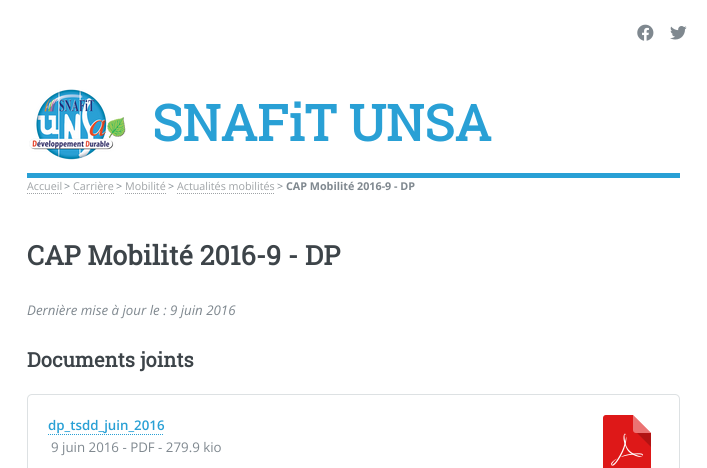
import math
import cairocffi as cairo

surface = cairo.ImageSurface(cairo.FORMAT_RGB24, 707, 468)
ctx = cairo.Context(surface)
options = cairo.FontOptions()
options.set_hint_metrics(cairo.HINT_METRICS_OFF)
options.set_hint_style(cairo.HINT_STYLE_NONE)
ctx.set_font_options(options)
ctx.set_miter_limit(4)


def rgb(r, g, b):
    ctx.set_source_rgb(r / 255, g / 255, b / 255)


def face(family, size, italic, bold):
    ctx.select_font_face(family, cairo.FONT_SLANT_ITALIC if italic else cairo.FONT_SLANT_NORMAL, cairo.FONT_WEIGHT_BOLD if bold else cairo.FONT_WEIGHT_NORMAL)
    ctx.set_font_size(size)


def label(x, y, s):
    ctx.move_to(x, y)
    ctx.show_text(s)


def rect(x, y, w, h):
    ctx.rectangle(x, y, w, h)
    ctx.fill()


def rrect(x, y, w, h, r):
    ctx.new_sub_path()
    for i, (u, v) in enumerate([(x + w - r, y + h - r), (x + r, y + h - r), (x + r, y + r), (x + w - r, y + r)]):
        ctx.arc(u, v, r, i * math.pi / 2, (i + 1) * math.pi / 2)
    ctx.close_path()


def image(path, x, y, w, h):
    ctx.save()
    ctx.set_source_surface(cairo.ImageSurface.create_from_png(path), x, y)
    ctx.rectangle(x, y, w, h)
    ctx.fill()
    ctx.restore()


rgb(255, 255, 255)
ctx.paint()
rgb(41, 160, 213)
rect(27, 173, 653, 5)
image('image0.png', 637, 24, 17, 17)
image('image1.png', 670, 26, 17, 14)
image('image2.png', 29, 89, 97, 71)
face('Roboto Slab', 50, 0, 1)
label(152, 141, 'SNAFiT UNSA')
face('Open Sans', 10.75, 0, 0)
rgb(159, 163, 166)
label(27, 190, 'Accueil')
ctx.new_path()
ctx.move_to(27, 193.5)
ctx.line_to(62, 193.5)
ctx.set_line_width(1)
ctx.set_dash([1, 1])
ctx.stroke()
rgb(127, 136, 143)
label(64, 190, '>')
rgb(159, 163, 166)
label(73, 190, 'Carrière')
ctx.new_path()
ctx.move_to(73, 193.5)
ctx.line_to(114, 193.5)
ctx.stroke()
rgb(127, 136, 143)
label(116, 190, '>')
rgb(159, 163, 166)
label(125, 190, 'Mobilité')
ctx.new_path()
ctx.move_to(125, 193.5)
ctx.line_to(166, 193.5)
ctx.stroke()
rgb(127, 136, 143)
label(168, 190, '>')
rgb(159, 163, 166)
label(177, 190, 'Actualités mobilités')
ctx.new_path()
ctx.move_to(177, 193.5)
ctx.line_to(274, 193.5)
ctx.stroke()
rgb(127, 136, 143)
label(277, 190, '>')
face('Open Sans', 10.75, 0, 1)
label(286, 190, 'CAP Mobilité 2016-9 - DP')
face('Roboto Slab', 26.75, 0, 1)
rgb(61, 68, 73)
label(27, 265, 'CAP Mobilité 2016-9 - DP')
face('Open Sans', 13.3, 1, 0)
rgb(127, 136, 143)
label(27, 315, 'Dernière mise à jour le : 9 juin 2016')
face('Roboto Slab', 20, 0, 1)
rgb(61, 68, 73)
label(27, 367, 'Documents joints')
rrect(27.5, 394.5, 652, 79, 4.5)
rgb(221, 225, 227)
ctx.set_dash([])
ctx.stroke()
ctx.new_path()
ctx.move_to(48, 434.5)
ctx.line_to(164, 434.5)
rgb(41, 160, 213)
ctx.set_dash([1, 1])
ctx.stroke()
face('Open Sans SemiBold', 13.3, 0, 0)
label(48, 430, 'dp_tsdd_juin_2016')
image('image3.png', 603, 415, 48, 53)
face('Open Sans', 13.3, 0, 0)
rgb(127, 136, 143)
label(51, 452, '9 juin 2016 - PDF - 279.9 kio')
surface.write_to_png('render.png')
